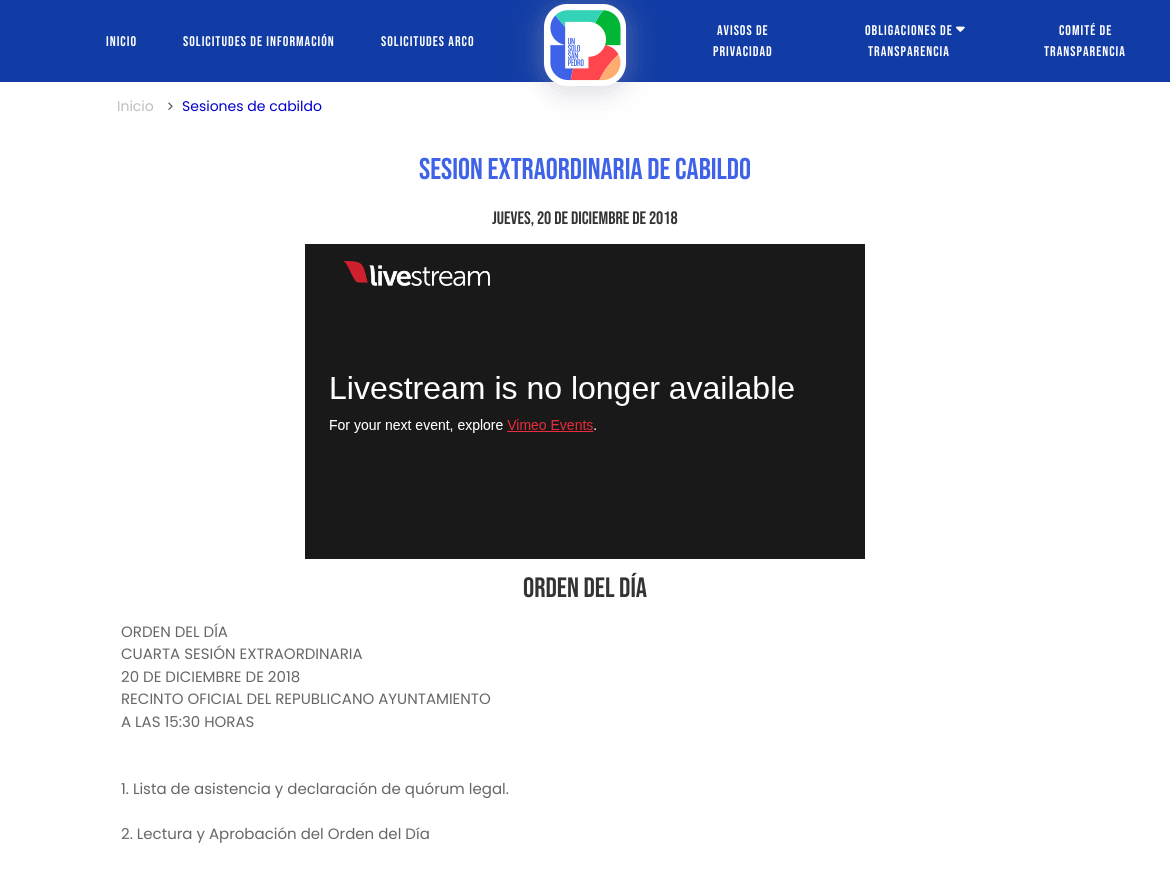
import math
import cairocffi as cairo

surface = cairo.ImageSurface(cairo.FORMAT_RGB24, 1170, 873)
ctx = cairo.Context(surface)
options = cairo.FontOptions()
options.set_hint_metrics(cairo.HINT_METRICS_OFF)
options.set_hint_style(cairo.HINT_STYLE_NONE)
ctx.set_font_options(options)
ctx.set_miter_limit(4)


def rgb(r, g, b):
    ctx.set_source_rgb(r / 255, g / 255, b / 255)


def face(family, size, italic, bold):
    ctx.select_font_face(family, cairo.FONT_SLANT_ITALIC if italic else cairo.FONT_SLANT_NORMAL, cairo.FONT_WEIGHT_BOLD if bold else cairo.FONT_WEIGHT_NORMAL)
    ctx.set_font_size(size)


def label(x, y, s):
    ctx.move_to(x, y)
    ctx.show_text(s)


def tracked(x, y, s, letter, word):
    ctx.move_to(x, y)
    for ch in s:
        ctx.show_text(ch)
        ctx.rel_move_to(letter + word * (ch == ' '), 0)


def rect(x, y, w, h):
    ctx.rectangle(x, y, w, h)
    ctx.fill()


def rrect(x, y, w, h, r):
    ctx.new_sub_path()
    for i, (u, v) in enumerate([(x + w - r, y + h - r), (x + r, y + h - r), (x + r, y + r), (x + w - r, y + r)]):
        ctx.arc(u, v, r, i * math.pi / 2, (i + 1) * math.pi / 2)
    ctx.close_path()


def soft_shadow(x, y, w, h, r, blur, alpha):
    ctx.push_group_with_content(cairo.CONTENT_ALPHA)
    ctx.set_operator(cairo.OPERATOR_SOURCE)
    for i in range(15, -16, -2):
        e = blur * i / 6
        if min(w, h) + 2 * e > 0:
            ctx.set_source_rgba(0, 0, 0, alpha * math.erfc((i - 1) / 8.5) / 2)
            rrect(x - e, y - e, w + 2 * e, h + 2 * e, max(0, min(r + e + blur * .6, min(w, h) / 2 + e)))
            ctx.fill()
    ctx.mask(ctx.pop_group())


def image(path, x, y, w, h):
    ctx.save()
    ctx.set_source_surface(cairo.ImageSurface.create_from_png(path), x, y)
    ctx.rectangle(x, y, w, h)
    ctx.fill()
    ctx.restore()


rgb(255, 255, 255)
ctx.paint()
rgb(17, 60, 165)
rect(0, 0, 1170, 82)
face('Bebas Neue', 14, 0, 0)
rgb(255, 255, 255)
tracked(106, 46, 'Inicio', 1, 0)
tracked(183, 46, 'Solicitudes de información', 1, 0)
tracked(381, 46, 'Solicitudes ARCO', 1, 0)
rgb(163, 163, 185)
soft_shadow(544, 7, 82, 82, 23, 15, 0.49)
rgb(255, 255, 255)
rrect(544, 4, 82, 82, 23)
ctx.fill()
image('image0.png', 550, 10, 71, 71)
tracked(717, 35, 'Avisos de', 1, 0)
tracked(713, 56, 'Privacidad', 1, 0)
tracked(865, 35, 'Obligaciones de', 1, 0)
image('image1.png', 956, 26, 9, 6)
tracked(868, 56, 'transparencia', 1, 0)
tracked(1059, 35, 'Comité de', 1, 0)
tracked(1044, 56, 'transparencia', 1, 0)
face('Poppins', 14, 0, 0)
rgb(189, 189, 189)
label(117, 111, 'Inicio')
image('image2.png', 168, 102, 5, 8)
rgb(0, 0, 204)
label(182, 111, 'Sesiones de cabildo')
face('Bebas Neue', 30, 0, 0)
rgb(63, 99, 232)
label(419, 179, 'Sesion Extraordinaria De Cabildo')
face('Bebas Neue', 18, 0, 0)
rgb(52, 52, 52)
label(492, 224, 'jueves, 20 de diciembre de 2018')
image('image3.png', 305, 244, 560, 315)
face('Bebas Neue', 28, 0, 0)
label(523, 597, 'Orden del Día')
face('Poppins', 15, 0, 0)
rgb(102, 102, 102)
label(121, 637, 'ORDEN DEL DÍA')
label(121, 659, 'CUARTA SESIÓN EXTRAORDINARIA')
label(121, 682, '20 DE DICIEMBRE DE 2018')
label(121, 704, 'RECINTO OFICIAL DEL REPUBLICANO AYUNTAMIENTO')
label(121, 727, 'A LAS 15:30 HORAS')
label(121, 794, '1. Lista de asistencia y declaración de quórum legal.')
label(121, 839, '2. Lectura y Aprobación del Orden del Día')
surface.write_to_png('render.png')
